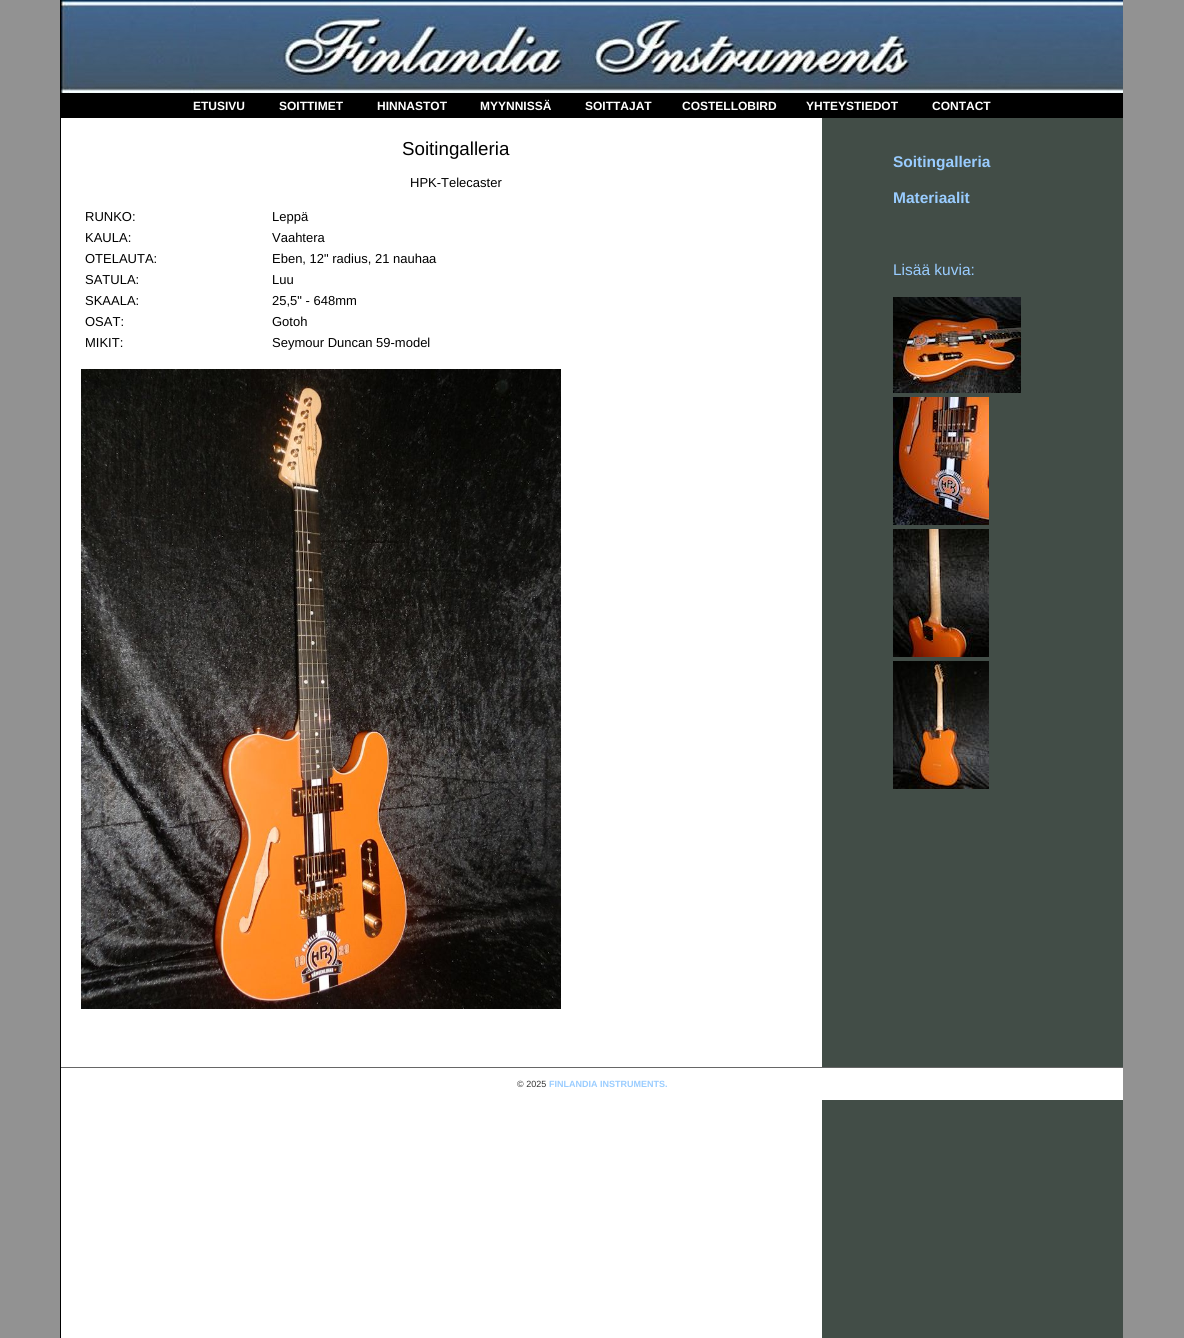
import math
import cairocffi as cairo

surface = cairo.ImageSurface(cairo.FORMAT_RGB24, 1184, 1338)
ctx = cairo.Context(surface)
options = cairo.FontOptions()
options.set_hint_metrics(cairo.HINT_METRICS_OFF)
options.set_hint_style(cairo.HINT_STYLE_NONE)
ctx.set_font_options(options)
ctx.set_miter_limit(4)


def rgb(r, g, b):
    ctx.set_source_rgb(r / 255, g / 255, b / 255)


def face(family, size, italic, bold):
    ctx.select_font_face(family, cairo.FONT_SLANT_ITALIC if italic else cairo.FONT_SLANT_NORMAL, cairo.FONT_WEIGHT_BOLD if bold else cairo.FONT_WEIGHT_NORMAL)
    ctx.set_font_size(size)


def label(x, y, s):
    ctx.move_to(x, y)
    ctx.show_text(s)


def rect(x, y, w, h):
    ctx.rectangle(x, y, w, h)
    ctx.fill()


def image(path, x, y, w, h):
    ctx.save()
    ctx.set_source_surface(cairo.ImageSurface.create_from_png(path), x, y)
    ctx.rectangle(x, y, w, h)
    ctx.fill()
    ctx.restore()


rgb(146, 146, 146)
ctx.paint()
image('image0.png', 60, 0, 1063, 1338)
image('image1.png', 61, 0, 1062, 93)
rgb(0, 0, 0)
rect(61, 93, 1062, 25)
face('Liberation Sans', 12, 0, 1)
rgb(255, 255, 255)
label(193, 110, 'ETUSIVU')
label(279, 110, 'SOITTIMET')
label(377, 110, 'HINNASTOT')
label(480, 110, 'MYYNNISSÄ')
label(585, 110, 'SOITTAJAT')
label(682, 110, 'COSTELLOBIRD')
label(806, 110, 'YHTEYSTIEDOT')
label(932, 110, 'CONTACT')
face('Liberation Sans', 18.75, 0, 0)
rgb(0, 0, 0)
label(402, 155, 'Soitingalleria')
face('Liberation Sans', 13, 0, 0)
label(410, 187, 'HPK-Telecaster')
label(85, 221, 'RUNKO:')
label(272, 221, 'Leppä')
label(85, 242, 'KAULA:')
label(272, 242, 'Vaahtera')
label(85, 263, 'OTELAUTA:')
label(272, 263, 'Eben, 12" radius, 21 nauhaa')
label(85, 284, 'SATULA:')
label(272, 284, 'Luu')
label(85, 305, 'SKAALA:')
label(272, 305, '25,5" - 648mm')
label(85, 326, 'OSAT:')
label(272, 326, 'Gotoh')
label(85, 347, 'MIKIT:')
label(272, 347, 'Seymour Duncan 59-model')
image('image2.png', 81, 369, 480, 640)
face('Liberation Sans', 15.5, 0, 1)
rgb(153, 204, 255)
label(893, 167, 'Soitingalleria')
label(893, 203, 'Materiaalit')
face('Liberation Sans', 15.5, 0, 0)
label(893, 275, 'Lisää kuvia:')
image('image3.png', 893, 297, 128, 96)
image('image4.png', 893, 397, 96, 128)
image('image5.png', 893, 529, 96, 128)
image('image6.png', 893, 661, 96, 128)
rgb(255, 255, 255)
rect(822, 1068, 301, 32)
rgb(102, 102, 102)
rect(61, 1067, 1062, 1)
face('Liberation Sans', 9, 0, 0)
rgb(51, 51, 51)
label(517, 1087, '© 2025')
face('Liberation Sans', 9, 0, 1)
rgb(153, 204, 255)
label(549, 1087, 'FINLANDIA INSTRUMENTS.')
surface.write_to_png('render.png')
